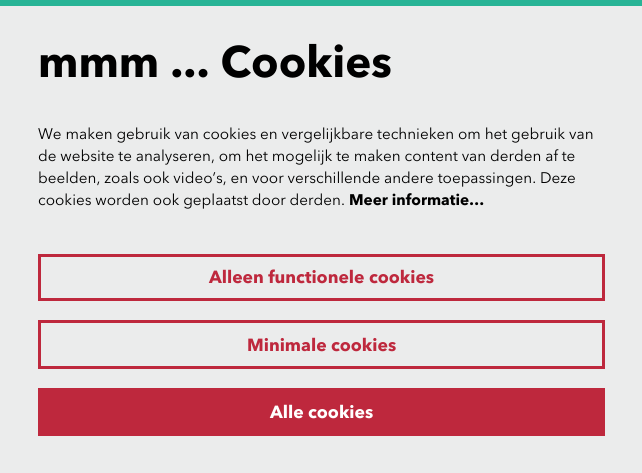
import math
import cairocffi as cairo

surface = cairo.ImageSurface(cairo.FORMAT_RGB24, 642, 473)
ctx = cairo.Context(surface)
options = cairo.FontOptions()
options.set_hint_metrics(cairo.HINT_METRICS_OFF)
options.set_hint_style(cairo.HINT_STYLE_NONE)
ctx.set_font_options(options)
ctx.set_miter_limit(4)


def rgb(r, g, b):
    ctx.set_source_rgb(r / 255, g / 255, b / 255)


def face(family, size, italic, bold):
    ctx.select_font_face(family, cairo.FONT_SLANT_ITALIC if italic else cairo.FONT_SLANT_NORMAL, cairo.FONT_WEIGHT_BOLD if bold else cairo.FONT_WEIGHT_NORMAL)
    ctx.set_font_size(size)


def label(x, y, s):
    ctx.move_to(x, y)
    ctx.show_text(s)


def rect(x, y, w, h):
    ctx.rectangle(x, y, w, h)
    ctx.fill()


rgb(40, 180, 150)
ctx.paint()
rgb(235, 236, 236)
rect(0, 6, 642, 467)
face('Avenir Next', 43.75, 0, 1)
rgb(0, 0, 0)
label(38, 77, 'mmm ... Cookies')
face('Avenir Next', 15.3, 0, 0)
label(38, 139, 'We maken gebruik van cookies en vergelijkbare technieken om het gebruik van')
label(38, 161, 'de website te analyseren, om het mogelijk te maken content van derden af te')
label(38, 183, 'beelden, zoals ook video’s, en voor verschillende andere toepassingen. Deze')
label(38, 205, 'cookies worden ook geplaatst door derden.')
face('Avenir Next', 15.3, 0, 1)
label(349, 205, 'Meer informatie…')
ctx.rectangle(39.5, 255.5, 564, 44)
rgb(190, 40, 61)
ctx.set_line_width(3)
ctx.stroke()
face('Avenir Next', 17.5, 0, 1)
label(209, 283, 'Alleen functionele cookies')
ctx.rectangle(39.5, 321.5, 564, 46)
ctx.stroke()
label(247, 351, 'Minimale cookies')
rect(38, 388, 567, 48)
rgb(255, 255, 255)
label(270, 418, 'Alle cookies')
surface.write_to_png('render.png')
